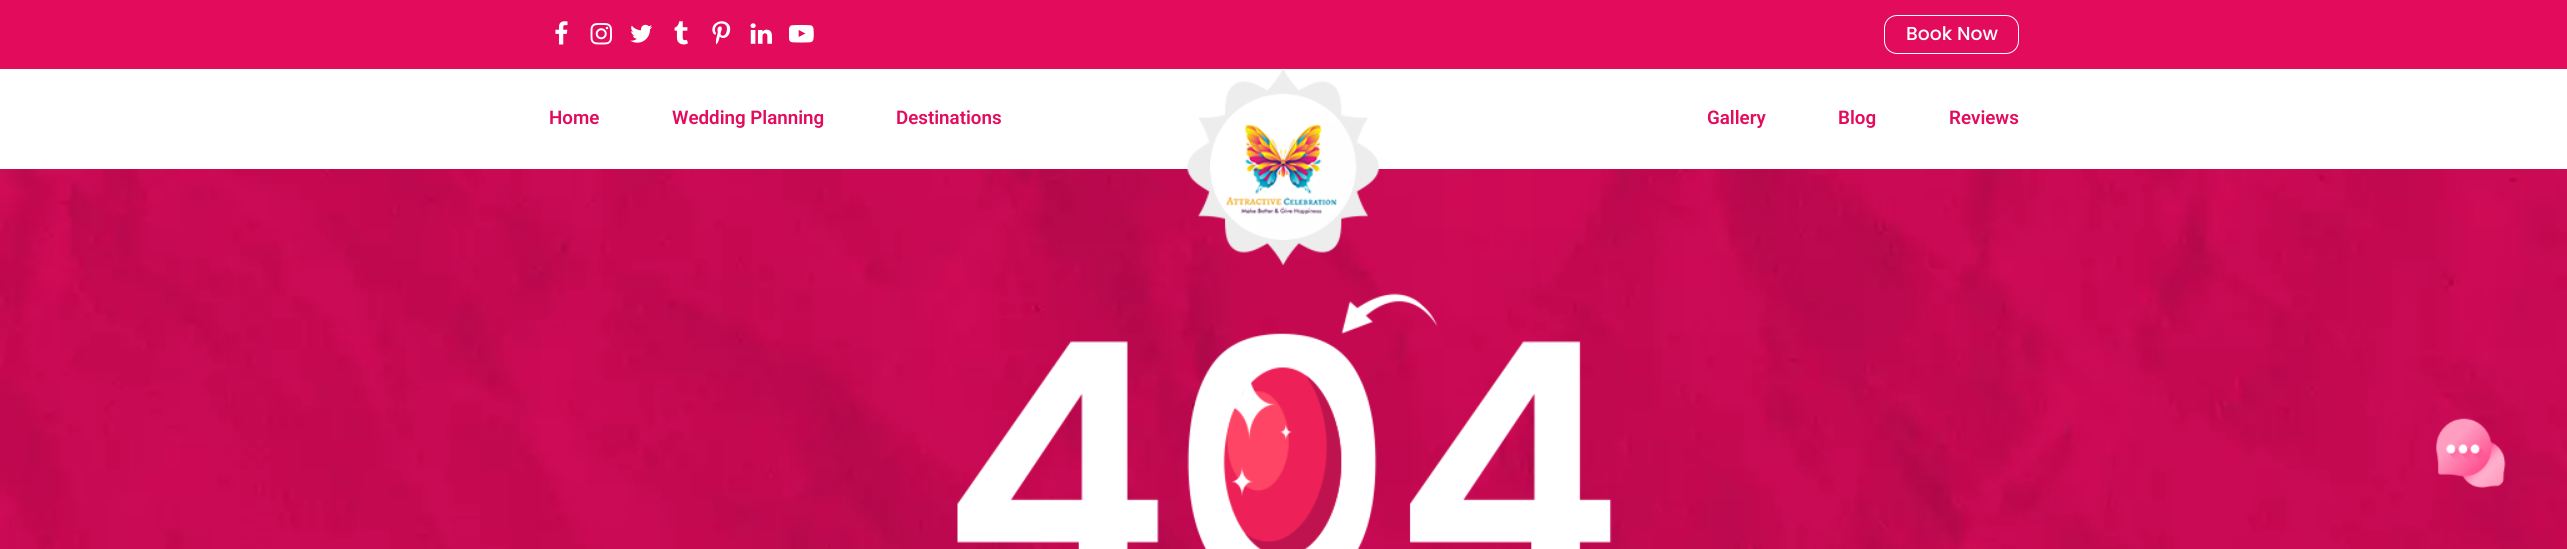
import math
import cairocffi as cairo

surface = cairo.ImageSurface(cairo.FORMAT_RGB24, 2567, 549)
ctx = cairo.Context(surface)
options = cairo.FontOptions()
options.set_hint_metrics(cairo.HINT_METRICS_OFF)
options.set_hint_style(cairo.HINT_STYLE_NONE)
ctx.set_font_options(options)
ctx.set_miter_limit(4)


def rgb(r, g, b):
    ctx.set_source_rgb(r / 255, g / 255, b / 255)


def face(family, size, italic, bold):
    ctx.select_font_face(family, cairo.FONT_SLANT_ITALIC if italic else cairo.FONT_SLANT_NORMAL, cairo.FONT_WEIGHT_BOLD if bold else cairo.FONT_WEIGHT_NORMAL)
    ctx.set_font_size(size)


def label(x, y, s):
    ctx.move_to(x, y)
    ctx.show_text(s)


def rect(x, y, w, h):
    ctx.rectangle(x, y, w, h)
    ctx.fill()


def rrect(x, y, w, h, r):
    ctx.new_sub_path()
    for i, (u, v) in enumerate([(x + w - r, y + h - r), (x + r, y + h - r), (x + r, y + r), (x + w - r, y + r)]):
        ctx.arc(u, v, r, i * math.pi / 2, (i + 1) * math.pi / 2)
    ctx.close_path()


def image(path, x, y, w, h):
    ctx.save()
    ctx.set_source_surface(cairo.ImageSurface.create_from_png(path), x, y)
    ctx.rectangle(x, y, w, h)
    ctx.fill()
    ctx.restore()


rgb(255, 255, 255)
ctx.paint()
rgb(227, 11, 92)
rect(0, 0, 2567, 69)
image('image0.png', 555, 21, 13, 24)
image('image1.png', 590, 23, 22, 22)
image('image2.png', 630, 24, 23, 19)
image('image3.png', 674, 21, 14, 24)
image('image4.png', 712, 21, 19, 24)
image('image5.png', 750, 23, 22, 21)
image('image6.png', 789, 24, 25, 19)
rrect(1884.5, 15.5, 134, 38, 12.5)
rgb(255, 255, 255)
ctx.set_line_width(1)
ctx.stroke()
face('Poppins Medium', 18.75, 0, 0)
label(1906, 40, 'Book Now')
face('Roboto SemiBold', 18.75, 0, 0)
rgb(227, 11, 92)
label(549, 124, 'Home')
label(672, 124, 'Wedding Planning')
label(896, 124, 'Destinations')
image('image9.png', 0, 169, 2567, 380)
image('image7.png', 1187, 68, 192, 197)
image('image8.png', 1210, 93, 147, 147)
label(1707, 124, 'Gallery')
label(1838, 124, 'Blog')
label(1949, 124, 'Reviews')
image('image10.png', 957, 293, 655, 256)
image('image11.png', 2436, 418, 70, 70)
surface.write_to_png('render.png')
